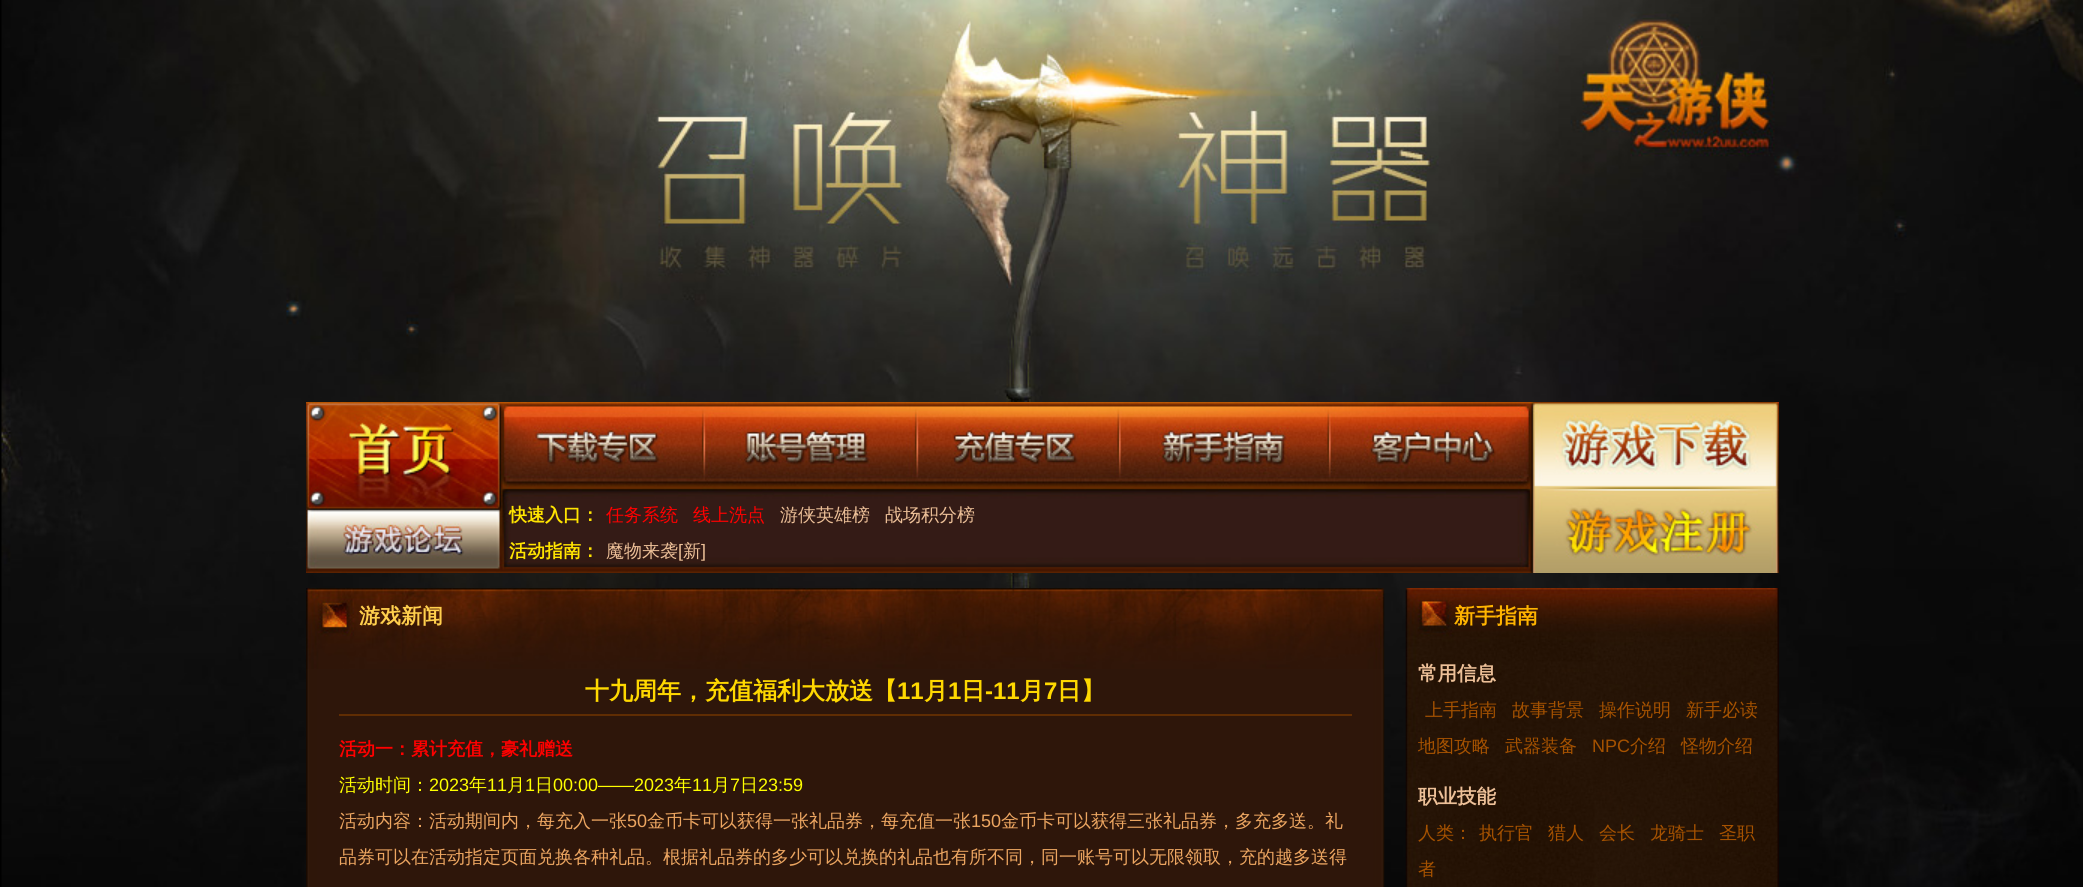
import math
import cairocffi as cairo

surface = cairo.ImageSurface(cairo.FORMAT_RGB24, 2083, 887)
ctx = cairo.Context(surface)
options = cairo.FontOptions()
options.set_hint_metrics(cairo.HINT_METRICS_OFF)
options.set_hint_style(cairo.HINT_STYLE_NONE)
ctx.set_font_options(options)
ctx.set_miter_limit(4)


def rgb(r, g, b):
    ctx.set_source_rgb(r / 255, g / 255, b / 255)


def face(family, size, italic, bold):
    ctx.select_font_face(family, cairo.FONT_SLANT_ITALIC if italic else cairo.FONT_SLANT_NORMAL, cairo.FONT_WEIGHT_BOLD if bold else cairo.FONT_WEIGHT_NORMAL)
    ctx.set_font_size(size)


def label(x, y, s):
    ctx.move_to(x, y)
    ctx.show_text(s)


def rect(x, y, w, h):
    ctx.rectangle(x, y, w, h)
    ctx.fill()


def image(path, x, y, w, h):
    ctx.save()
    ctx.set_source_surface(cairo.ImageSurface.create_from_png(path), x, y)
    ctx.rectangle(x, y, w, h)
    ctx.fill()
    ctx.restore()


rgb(0, 0, 0)
ctx.paint()
image('image0.png', 1, 0, 2082, 887)
image('image1.png', 306, 402, 1473, 171)
face('WenQuanYi Zen Hei', 18, 0, 1)
rgb(255, 228, 0)
label(509, 521, '快速入口：')
face('WenQuanYi Zen Hei Medium', 18, 0, 0)
rgb(255, 0, 0)
label(606, 521, '任务系统')
label(693, 521, '线上洗点')
rgb(237, 192, 152)
label(780, 521, '游侠英雄榜')
label(885, 521, '战场积分榜')
face('WenQuanYi Zen Hei', 18, 0, 1)
rgb(255, 228, 0)
label(509, 557, '活动指南：')
face('WenQuanYi Zen Hei Medium', 18, 0, 0)
rgb(237, 192, 152)
label(606, 557, '魔物来袭')
face('Liberation Sans', 18, 0, 0)
label(678, 557, '[')
face('WenQuanYi Zen Hei Medium', 18, 0, 0)
label(683, 557, '新')
face('Liberation Sans', 18, 0, 0)
label(701, 557, ']')
image('image2.png', 306, 588, 1079, 81)
face('WenQuanYi Zen Hei', 21, 0, 1)
rgb(255, 207, 77)
label(359, 623, '游戏新闻')
image('image3.png', 306, 669, 1079, 218)
rgb(96, 45, 3)
rect(339, 714, 1013, 2)
face('WenQuanYi Zen Hei', 24, 0, 1)
rgb(255, 216, 0)
label(585, 699, '十九周年，充值福利大放送【')
face('Liberation Sans', 24, 0, 1)
label(897, 699, '11')
face('WenQuanYi Zen Hei', 24, 0, 1)
label(924, 699, '月')
face('Liberation Sans', 24, 0, 1)
label(948, 699, '1')
face('WenQuanYi Zen Hei', 24, 0, 1)
label(961, 699, '日')
face('Liberation Sans', 24, 0, 1)
label(985, 699, '-11')
face('WenQuanYi Zen Hei', 24, 0, 1)
label(1020, 699, '月')
face('Liberation Sans', 24, 0, 1)
label(1044, 699, '7')
face('WenQuanYi Zen Hei', 24, 0, 1)
label(1057, 699, '日】')
face('WenQuanYi Zen Hei', 18, 0, 1)
rgb(255, 0, 0)
label(339, 755, '活动一：累计充值，豪礼赠送')
face('WenQuanYi Zen Hei Medium', 18, 0, 0)
rgb(255, 255, 0)
label(339, 791, '活动时间：')
face('Liberation Sans', 18, 0, 0)
label(429, 791, '2023')
face('WenQuanYi Zen Hei Medium', 18, 0, 0)
label(469, 791, '年')
face('Liberation Sans', 18, 0, 0)
label(487, 791, '11')
face('WenQuanYi Zen Hei Medium', 18, 0, 0)
label(507, 791, '月')
face('Liberation Sans', 18, 0, 0)
label(525, 791, '1')
face('WenQuanYi Zen Hei Medium', 18, 0, 0)
label(535, 791, '日')
face('Liberation Sans', 18, 0, 0)
label(553, 791, '00:00——2023')
face('WenQuanYi Zen Hei Medium', 18, 0, 0)
label(674, 791, '年')
face('Liberation Sans', 18, 0, 0)
label(692, 791, '11')
face('WenQuanYi Zen Hei Medium', 18, 0, 0)
label(712, 791, '月')
face('Liberation Sans', 18, 0, 0)
label(730, 791, '7')
face('WenQuanYi Zen Hei Medium', 18, 0, 0)
label(740, 791, '日')
face('Liberation Sans', 18, 0, 0)
label(758, 791, '23:59')
face('WenQuanYi Zen Hei Medium', 18, 0, 0)
rgb(237, 166, 97)
label(339, 827, '活动内容：活动期间内，每充入一张')
face('Liberation Sans', 18, 0, 0)
label(627, 827, '50')
face('WenQuanYi Zen Hei Medium', 18, 0, 0)
label(647, 827, '金币卡可以获得一张礼品券，每充值一张')
face('Liberation Sans', 18, 0, 0)
label(971, 827, '150')
face('WenQuanYi Zen Hei Medium', 18, 0, 0)
label(1001, 827, '金币卡可以获得三张礼品券，多充多送。礼')
label(339, 863, '品券可以在活动指定页面兑换各种礼品。根据礼品券的多少可以兑换的礼品也有所不同，同一账号可以无限领取，充的越多送得')
image('image4.png', 1405, 588, 374, 299)
face('WenQuanYi Zen Hei', 21, 0, 1)
rgb(255, 180, 0)
label(1454, 623, '新手指南')
face('WenQuanYi Zen Hei', 19.5, 0, 1)
rgb(237, 192, 152)
label(1418, 680, '常用信息')
face('WenQuanYi Zen Hei Medium', 18, 0, 0)
rgb(166, 82, 0)
label(1425, 716, '上手指南')
label(1512, 716, '故事背景')
label(1599, 716, '操作说明')
label(1686, 716, '新手必读')
label(1418, 752, '地图攻略')
label(1505, 752, '武器装备')
face('Liberation Sans', 18, 0, 0)
label(1592, 752, 'NPC')
face('WenQuanYi Zen Hei Medium', 18, 0, 0)
label(1630, 752, '介绍')
label(1681, 752, '怪物介绍')
ctx.save()
ctx.rectangle(1418, 779, 361, 36)
ctx.clip()
face('WenQuanYi Zen Hei', 19.5, 0, 1)
rgb(237, 192, 152)
label(1418, 803, '职业技能')
ctx.restore()
label(1418, 839, '人类：')
label(1479, 839, '执行官')
label(1548, 839, '猎人')
label(1599, 839, '会长')
label(1650, 839, '龙骑士')
label(1719, 839, '圣职')
label(1418, 875, '者')
surface.write_to_png('render.png')
